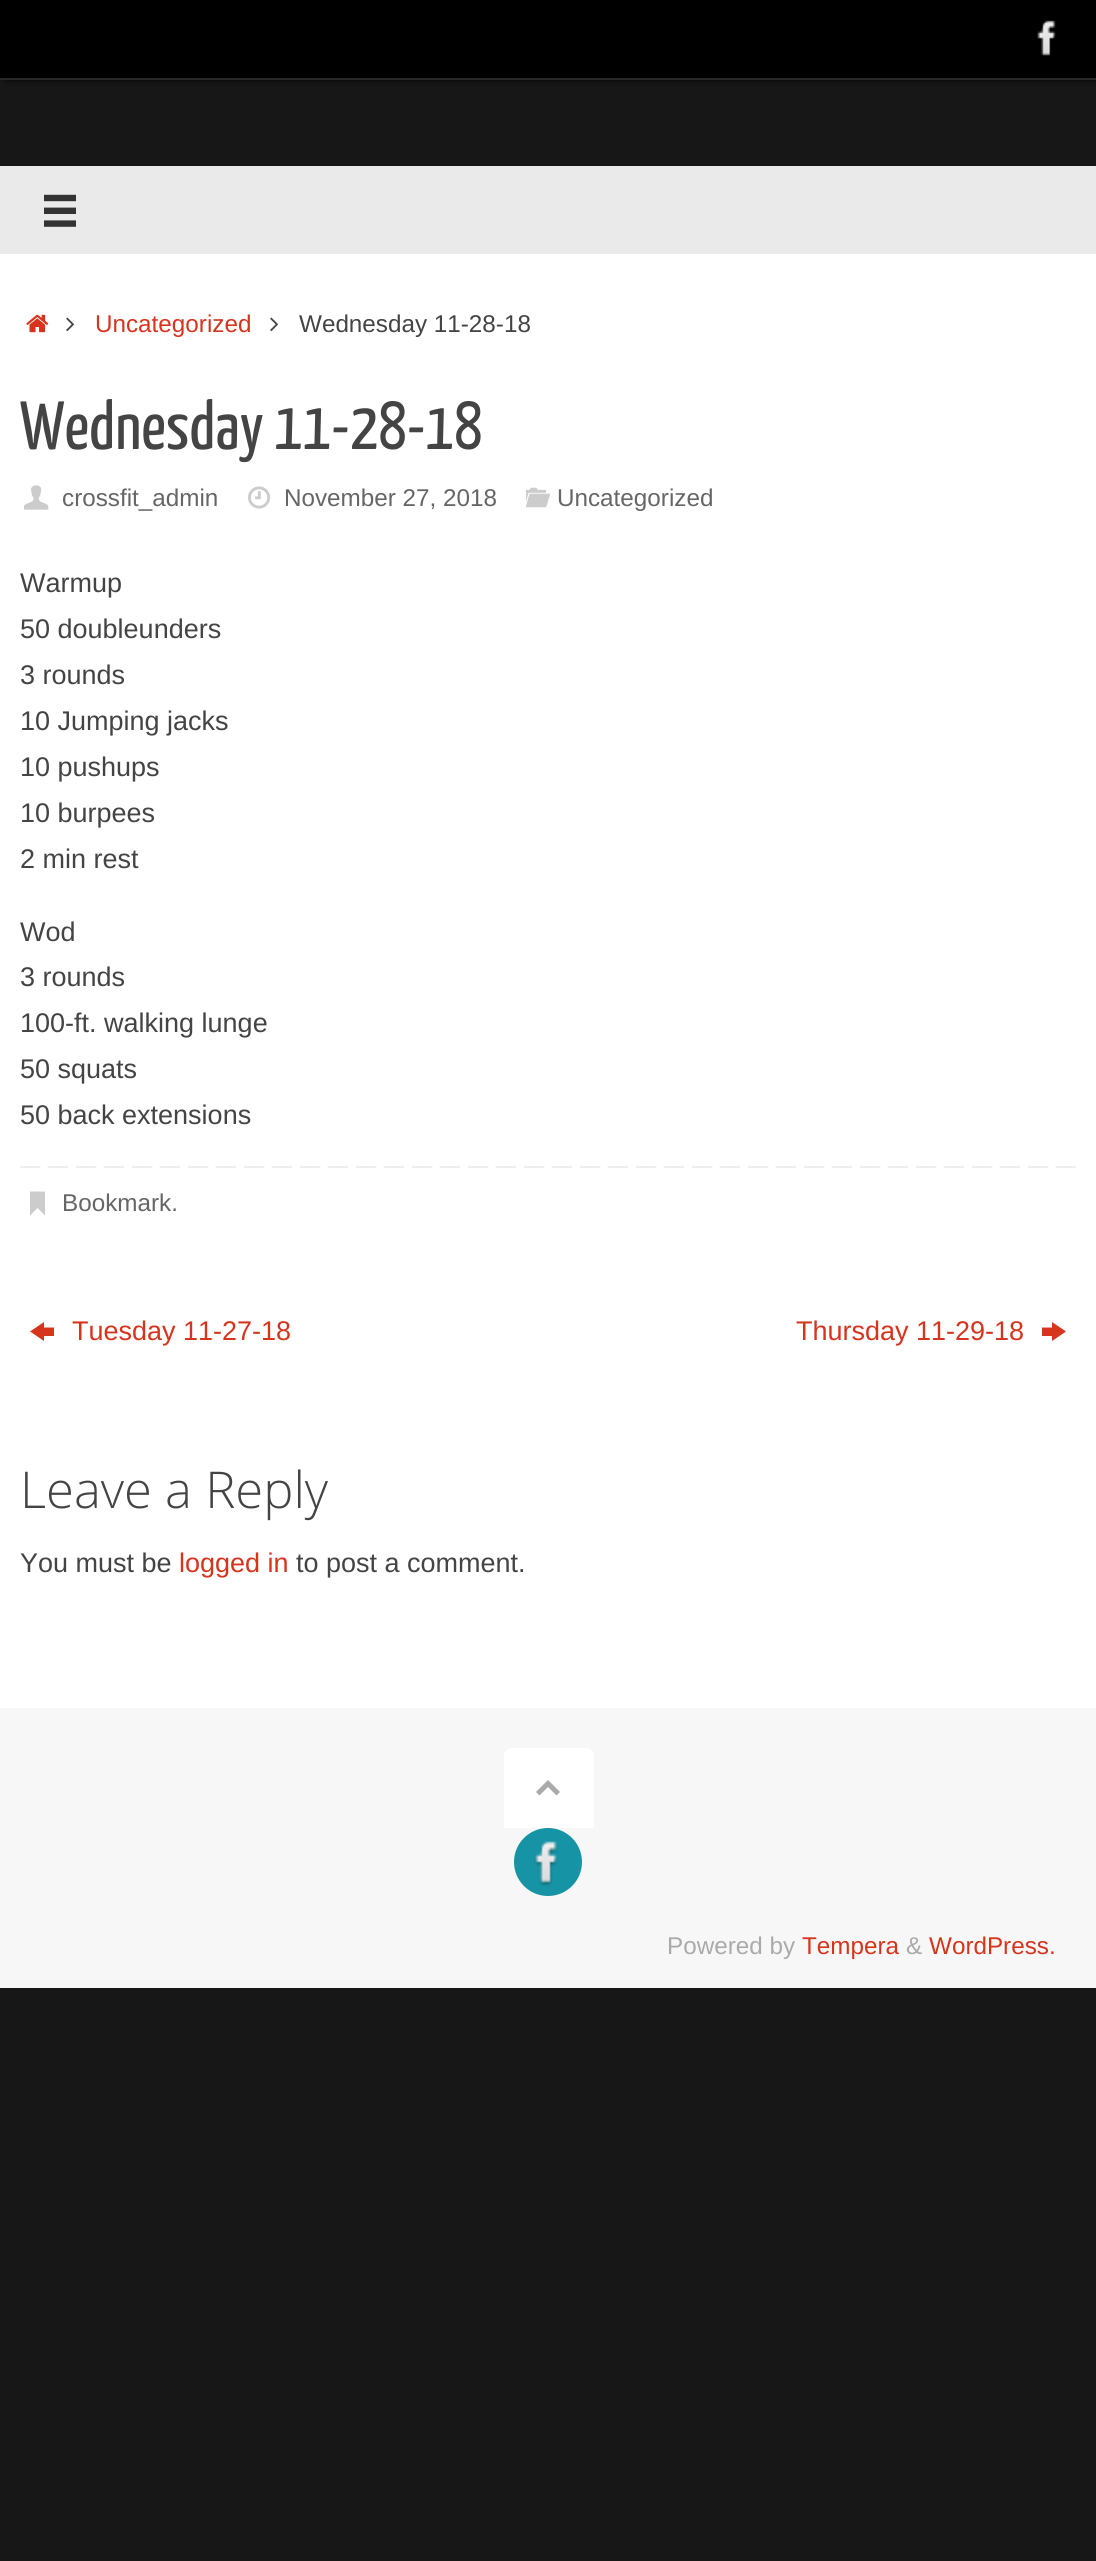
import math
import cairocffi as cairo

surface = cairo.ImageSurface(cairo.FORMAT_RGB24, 1096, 2561)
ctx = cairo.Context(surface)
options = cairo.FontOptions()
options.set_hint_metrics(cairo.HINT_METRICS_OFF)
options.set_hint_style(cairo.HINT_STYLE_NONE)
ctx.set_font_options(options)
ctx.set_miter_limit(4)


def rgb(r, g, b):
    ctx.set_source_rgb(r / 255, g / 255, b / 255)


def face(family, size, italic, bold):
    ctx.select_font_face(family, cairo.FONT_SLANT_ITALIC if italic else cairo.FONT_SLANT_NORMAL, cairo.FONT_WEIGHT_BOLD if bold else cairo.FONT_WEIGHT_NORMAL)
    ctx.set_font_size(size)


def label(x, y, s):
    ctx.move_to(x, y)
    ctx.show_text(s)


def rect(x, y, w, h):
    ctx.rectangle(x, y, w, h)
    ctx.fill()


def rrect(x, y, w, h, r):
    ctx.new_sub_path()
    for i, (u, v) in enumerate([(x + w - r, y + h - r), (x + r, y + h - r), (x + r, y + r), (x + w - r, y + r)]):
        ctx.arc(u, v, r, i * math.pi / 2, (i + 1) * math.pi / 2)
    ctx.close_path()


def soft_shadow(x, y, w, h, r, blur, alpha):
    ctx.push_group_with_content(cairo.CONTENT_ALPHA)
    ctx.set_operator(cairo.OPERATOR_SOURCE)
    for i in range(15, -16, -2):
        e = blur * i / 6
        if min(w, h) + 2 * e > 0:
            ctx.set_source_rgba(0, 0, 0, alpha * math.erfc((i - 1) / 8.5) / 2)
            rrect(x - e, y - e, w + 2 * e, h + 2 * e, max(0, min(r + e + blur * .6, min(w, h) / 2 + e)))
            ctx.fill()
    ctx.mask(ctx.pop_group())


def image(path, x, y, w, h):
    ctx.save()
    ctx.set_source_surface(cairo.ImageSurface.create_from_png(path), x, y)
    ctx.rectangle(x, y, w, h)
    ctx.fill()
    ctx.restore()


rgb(23, 23, 23)
ctx.paint()
rgb(0, 0, 0)
soft_shadow(6, 0, 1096, 80, 0, 3, 1)
rgb(0, 0, 0)
rect(0, 0, 1096, 78)
rgb(40, 40, 40)
rect(0, 78, 1096, 2)
image('image0.png', 1037, 20, 19, 36)
rgb(234, 234, 234)
rect(0, 166, 1096, 88)
image('image1.png', 44, 194, 32, 33)
rgb(255, 255, 255)
rect(0, 254, 1096, 1454)
image('image2.png', 26, 314, 23, 19)
image('image3.png', 66, 317, 8, 15)
face('Liberation Sans', 24.25, 0, 0)
rgb(214, 52, 29)
label(95, 332, 'Uncategorized')
image('image3.png', 270, 317, 8, 15)
rgb(68, 68, 68)
label(299, 332, 'Wednesday 11-28-18')
face('Yanone Kaffeesatz', 68, 0, 0)
label(20, 449, 'Wednesday 11-28-18')
image('image4.png', 24, 485, 25, 25)
face('Liberation Sans', 24.25, 0, 0)
rgb(102, 102, 102)
label(62, 506, 'crossfit_admin')
image('image5.png', 248, 486, 23, 23)
label(284, 506, 'November 27, 2018')
image('image6.png', 526, 487, 25, 21)
label(557, 506, 'Uncategorized')
face('Liberation Sans', 27, 0, 0)
rgb(68, 68, 68)
label(20, 592, 'Warmup')
label(20, 638, '50 doubleunders')
label(20, 684, '3 rounds')
label(20, 730, '10 Jumping jacks')
label(20, 776, '10 pushups')
label(20, 822, '10 burpees')
label(20, 868, '2 min rest')
label(20, 941, 'Wod')
label(20, 986, '3 rounds')
label(20, 1032, '100-ft. walking lunge')
label(20, 1078, '50 squats')
label(20, 1124, '50 back extensions')
image('image7.png', 20, 1166, 1056, 2)
rgb(204, 204, 204)
ctx.new_path()
ctx.move_to(30, 1213.5)
ctx.line_to(30, 1191.5)
ctx.line_to(45, 1191.5)
ctx.line_to(45, 1215.5)
ctx.line_to(37.5, 1208)
ctx.line_to(30, 1215.5)
ctx.close_path()
ctx.fill()
face('Liberation Sans', 24.25, 0, 0)
rgb(102, 102, 102)
label(62, 1211, 'Bookmark.')
rgb(214, 52, 29)
ctx.new_path()
ctx.move_to(30, 1331.5)
ctx.line_to(44, 1322)
ctx.line_to(44, 1327.5)
ctx.line_to(54, 1327.5)
ctx.line_to(54, 1336)
ctx.line_to(44, 1336)
ctx.line_to(44, 1341)
ctx.close_path()
ctx.fill()
face('Liberation Sans', 27, 0, 0)
label(72, 1340, 'Tuesday 11-27-18')
label(796, 1340, 'Thursday 11-29-18')
ctx.new_path()
ctx.move_to(1042, 1336)
ctx.line_to(1042, 1327.5)
ctx.line_to(1052, 1327.5)
ctx.line_to(1052, 1322)
ctx.line_to(1066, 1331.5)
ctx.line_to(1052, 1341)
ctx.line_to(1052, 1336)
ctx.close_path()
ctx.fill()
face('Open Sans Light', 50.75, 0, 0)
rgb(68, 68, 68)
label(20, 1508, 'Leave a Reply')
face('Liberation Sans', 27, 0, 0)
label(20, 1572, 'You must be')
rgb(214, 52, 29)
label(179, 1572, 'logged in')
rgb(68, 68, 68)
label(296, 1572, 'to post a comment.')
rgb(247, 247, 247)
rect(0, 1708, 1096, 280)
rgb(255, 255, 255)
ctx.new_path()
ctx.move_to(512, 1748)
ctx.line_to(586, 1748)
ctx.curve_to(590.5, 1748, 594, 1751.5, 594, 1756)
ctx.line_to(594, 1828)
ctx.line_to(504, 1828)
ctx.line_to(504, 1756)
ctx.curve_to(504, 1751.5, 507.5, 1748, 512, 1748)
ctx.close_path()
ctx.fill()
rgb(170, 170, 170)
ctx.new_path()
ctx.move_to(536, 1792)
ctx.line_to(548, 1780)
ctx.line_to(560, 1792)
ctx.line_to(556.5, 1795.5)
ctx.line_to(548, 1787)
ctx.line_to(539.5, 1795.5)
ctx.close_path()
ctx.fill()
rgb(22, 147, 165)
ctx.arc(548, 1862, 34, 0, 2 * math.pi)
ctx.fill()
image('image8.png', 534, 1841, 24, 45)
face('Liberation Sans', 24.25, 0, 0)
rgb(170, 170, 170)
label(667, 1954, 'Powered by')
rgb(214, 52, 29)
label(802, 1954, 'Tempera')
rgb(170, 170, 170)
label(906, 1954, '&')
rgb(214, 52, 29)
label(929, 1954, 'WordPress.')
surface.write_to_png('render.png')
